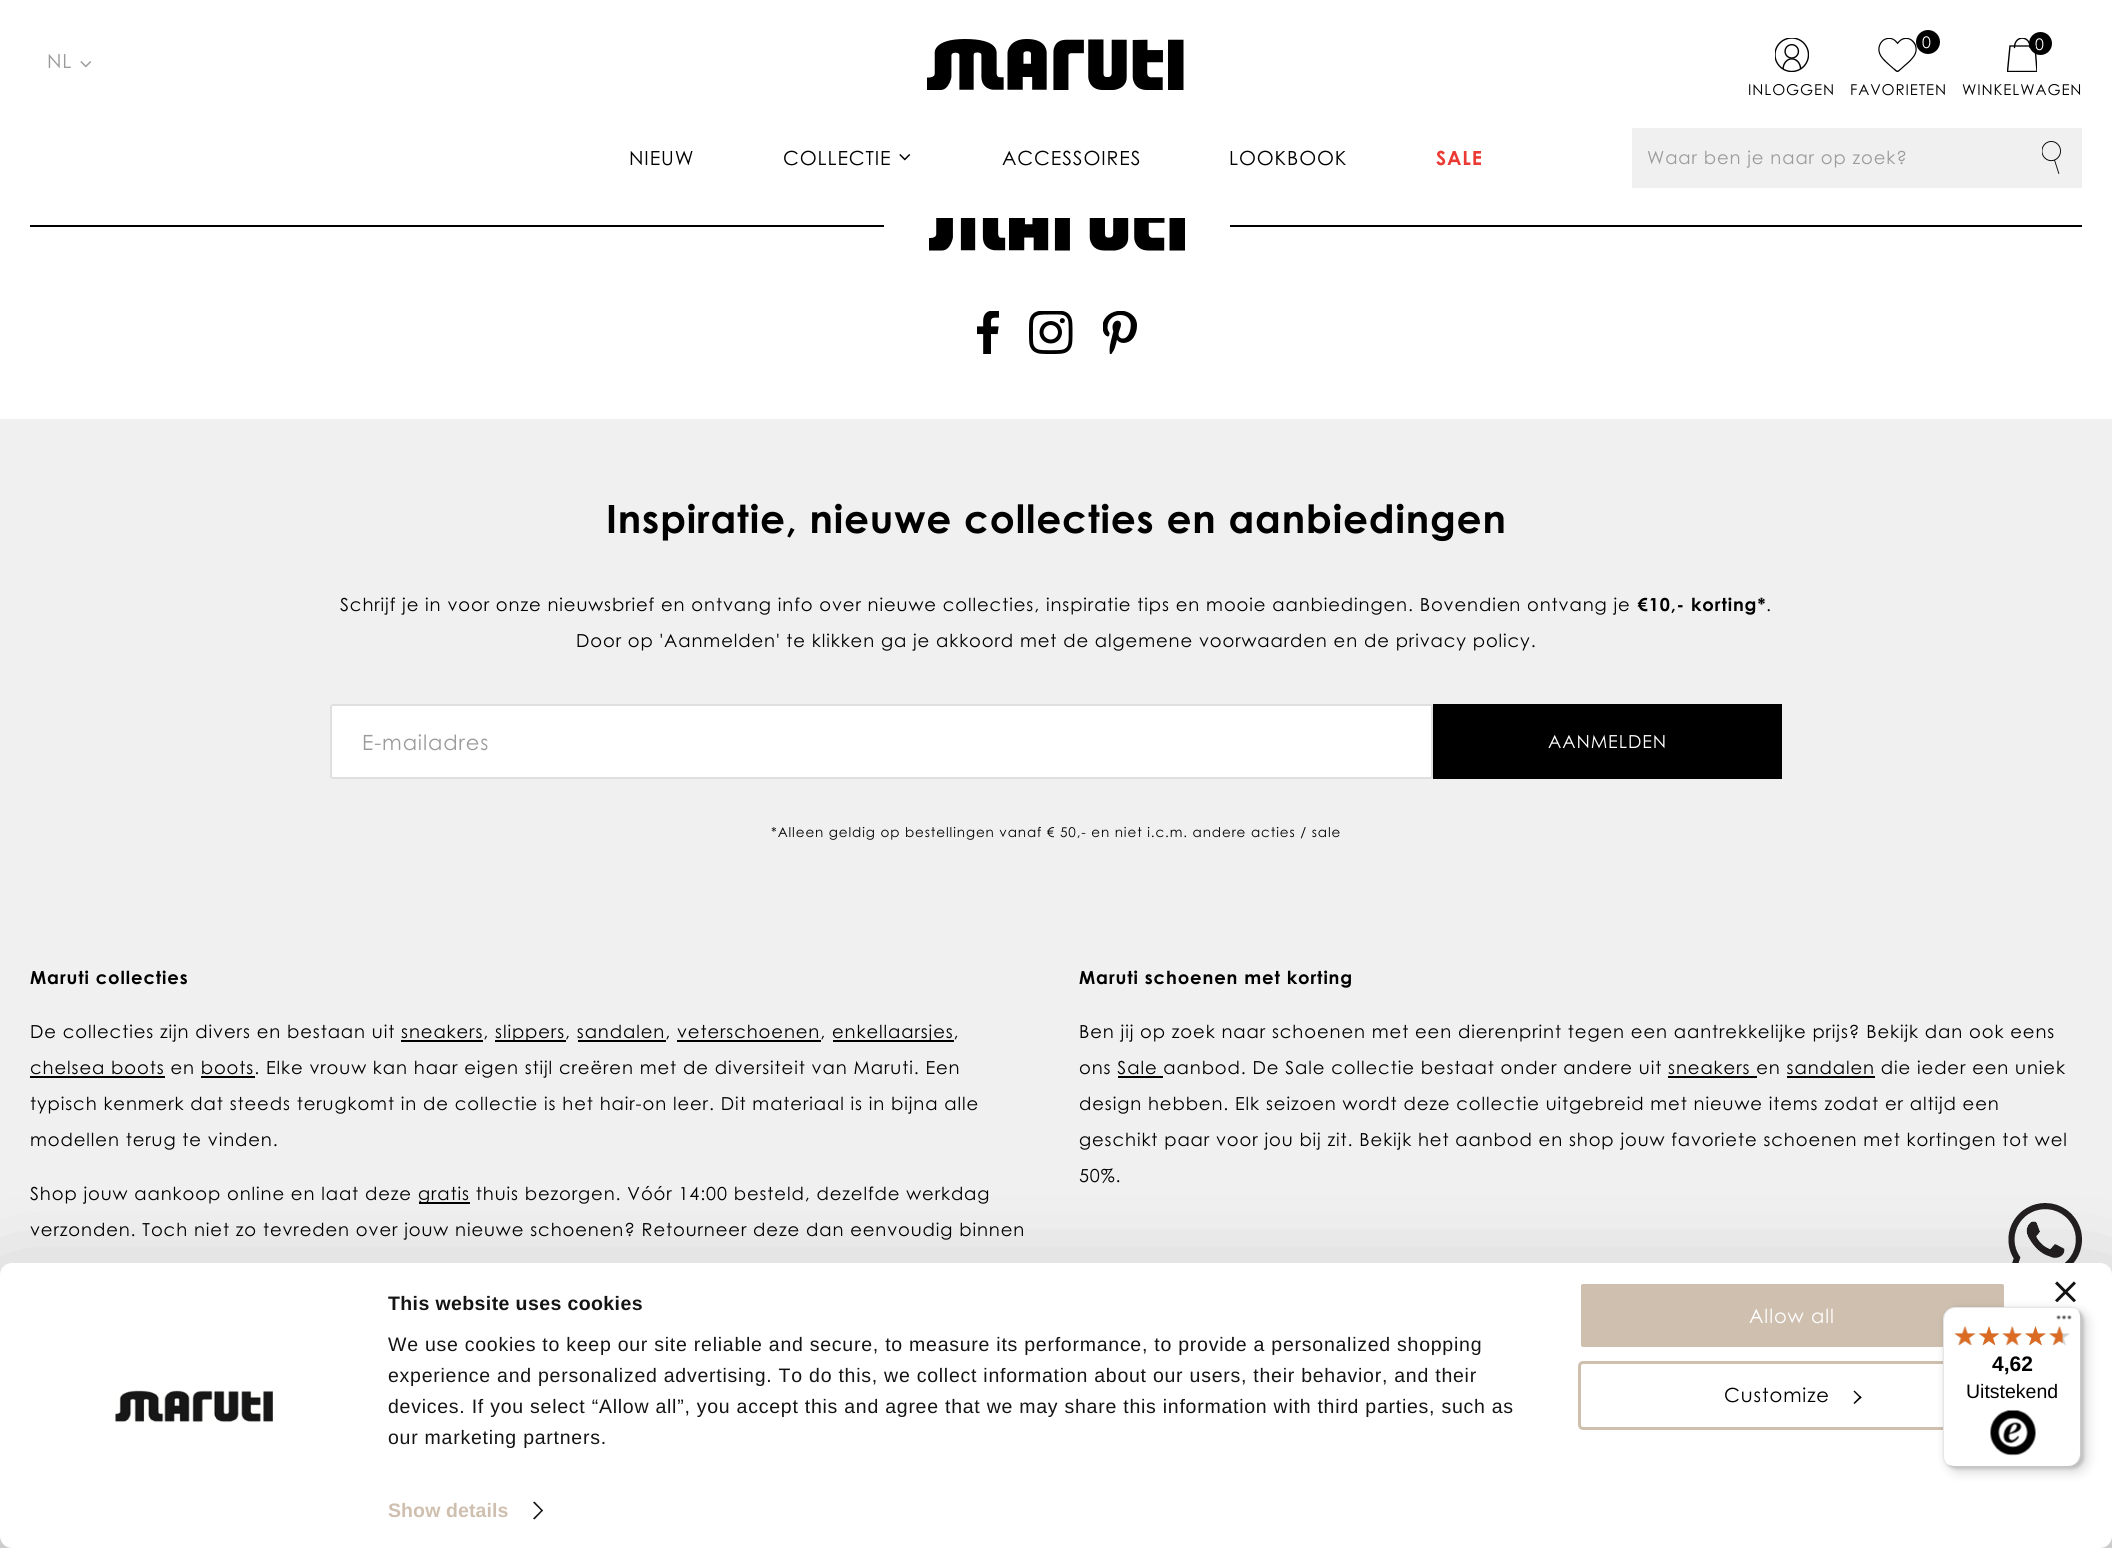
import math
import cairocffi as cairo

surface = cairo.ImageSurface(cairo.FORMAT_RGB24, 2112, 1548)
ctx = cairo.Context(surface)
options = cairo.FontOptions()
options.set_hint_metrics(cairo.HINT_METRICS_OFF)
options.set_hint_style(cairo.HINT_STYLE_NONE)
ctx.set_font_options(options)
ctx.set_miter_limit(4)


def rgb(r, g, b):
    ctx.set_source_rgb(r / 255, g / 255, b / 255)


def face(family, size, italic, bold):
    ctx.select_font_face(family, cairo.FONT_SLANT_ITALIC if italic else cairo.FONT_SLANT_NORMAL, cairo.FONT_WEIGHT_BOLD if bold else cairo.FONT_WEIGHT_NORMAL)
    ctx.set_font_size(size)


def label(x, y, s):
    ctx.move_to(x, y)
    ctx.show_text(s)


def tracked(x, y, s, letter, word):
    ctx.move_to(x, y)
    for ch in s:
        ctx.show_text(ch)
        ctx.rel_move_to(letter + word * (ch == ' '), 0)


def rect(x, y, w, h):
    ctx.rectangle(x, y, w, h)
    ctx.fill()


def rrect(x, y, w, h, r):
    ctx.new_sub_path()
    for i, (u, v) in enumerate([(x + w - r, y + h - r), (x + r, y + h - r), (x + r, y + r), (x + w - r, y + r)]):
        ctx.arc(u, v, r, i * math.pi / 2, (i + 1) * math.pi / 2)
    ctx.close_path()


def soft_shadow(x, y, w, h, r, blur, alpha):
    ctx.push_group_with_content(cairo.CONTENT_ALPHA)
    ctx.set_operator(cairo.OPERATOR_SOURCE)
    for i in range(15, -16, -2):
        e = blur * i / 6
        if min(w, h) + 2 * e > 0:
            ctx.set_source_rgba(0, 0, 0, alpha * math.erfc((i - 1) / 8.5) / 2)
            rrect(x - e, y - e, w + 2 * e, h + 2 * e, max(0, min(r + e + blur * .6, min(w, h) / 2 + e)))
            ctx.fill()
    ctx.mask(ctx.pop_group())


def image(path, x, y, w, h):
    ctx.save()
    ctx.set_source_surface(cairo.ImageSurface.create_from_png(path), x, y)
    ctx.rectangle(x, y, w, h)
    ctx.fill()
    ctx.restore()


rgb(240, 240, 240)
ctx.paint()
rgb(255, 255, 255)
rect(0, 0, 2112, 419)
face('Century Gothic', 19.5, 0, 0)
rgb(156, 155, 155)
tracked(47, 68, 'NL', 0.9, 0)
image('image0.png', 80, 61, 12, 7)
image('image1.png', 927, 39, 257, 51)
image('image2.png', 1775, 38, 34, 34)
face('Century Gothic', 15, 0, 0)
rgb(0, 0, 0)
tracked(1748, 95, 'INLOGGEN', 0.9, 0)
ctx.new_path()
ctx.arc(1928, 42, 12, 0, 2 * math.pi)
ctx.fill()
image('image3.png', 1878, 38, 39, 34)
face('Century Gothic', 16, 0, 0)
rgb(255, 255, 255)
tracked(1922, 48, '0', 0.9, 0)
face('Century Gothic', 15, 0, 0)
rgb(0, 0, 0)
tracked(1850, 95, 'FAVORIETEN', 0.9, 0)
ctx.new_path()
ctx.arc(2040.5, 43.5, 12.5, 0, 2 * math.pi)
ctx.fill_preserve()
rgb(255, 255, 255)
ctx.stroke()
face('Century Gothic', 16, 0, 0)
tracked(2035, 50, '0', 0.9, 0)
ctx.save()
ctx.rectangle(2007, 38, 30, 34)
ctx.clip()
ctx.new_path()
ctx.move_to(2007.5, 71.5)
ctx.line_to(2010, 46)
ctx.line_to(2035, 46)
ctx.line_to(2037, 71.5)
ctx.close_path()
rgb(0, 0, 0)
ctx.set_line_width(1.4)
ctx.stroke()
ctx.new_path()
ctx.move_to(2014.5, 47.5)
ctx.curve_to(2014.5, 35, 2030, 35, 2030, 47.5)
ctx.set_line_cap(cairo.LINE_CAP_ROUND)
ctx.set_line_join(cairo.LINE_JOIN_ROUND)
ctx.stroke()
ctx.restore()
face('Century Gothic', 15, 0, 0)
rgb(0, 0, 0)
tracked(1962, 95, 'WINKELWAGEN', 0.9, 0)
face('Century Gothic', 19.5, 0, 0)
tracked(629, 165, 'NIEUW', 0.9, 0)
tracked(783, 165, 'COLLECTIE', 0.9, 0)
image('image4.png', 899, 154, 12, 7)
tracked(1002, 165, 'ACCESSOIRES', 0.9, 0)
tracked(1229, 165, 'LOOKBOOK', 0.9, 0)
face('Century Gothic', 19.5, 0, 1)
rgb(235, 58, 52)
tracked(1436, 165, 'SALE', 0.9, 0)
rgb(240, 240, 240)
rect(1632, 128, 450, 60)
face('Century Gothic', 18, 0, 0)
rgb(156, 155, 155)
tracked(1647, 164, 'Waar ben je naar op zoek?', 0.9, 0)
image('image5.png', 2042, 141, 19, 33)
rgb(0, 0, 0)
rect(30, 225, 2052, 2)
rgb(255, 255, 255)
rect(884, 225, 346, 2)
image('image6.png', 929, 218, 256, 33)
image('image7.png', 977, 311, 22, 43)
image('image8.png', 1029, 311, 44, 43)
image('image9.png', 1103, 311, 34, 43)
face('Century Gothic', 39, 0, 1)
rgb(0, 0, 0)
tracked(606, 533, 'Inspiratie, nieuwe collecties en aanbiedingen', 0.9, 0)
face('Century Gothic', 18, 0, 0)
tracked(340, 611, 'Schrijf je in voor onze nieuwsbrief en ontvang info over nieuwe collecties, inspiratie tips en mooie aanbiedingen. Bovendien ontvang je', 0.9, 0)
face('Century Gothic', 18, 0, 1)
tracked(1637, 611, '€10,- korting*', 0.9, 0)
face('Century Gothic', 18, 0, 0)
tracked(1766, 611, '.', 0.9, 0)
tracked(576, 647, 'Door op \'Aanmelden\' te klikken ga je akkoord met de algemene voorwaarden en de privacy policy.', 0.9, 0)
rgb(255, 255, 255)
rrect(331, 705, 1101, 73, 2)
ctx.fill_preserve()
rgb(223, 223, 223)
ctx.stroke()
face('Century Gothic', 21, 0, 0)
rgb(156, 155, 155)
tracked(362, 750, 'E-mailadres', 0.9, 0)
rgb(0, 0, 0)
rect(1433, 704, 349, 75)
face('Century Gothic', 18, 0, 0)
rgb(255, 255, 255)
tracked(1548, 748, 'AANMELDEN', 0.9, 0)
face('Century Gothic', 13.5, 0, 0)
rgb(0, 0, 0)
tracked(771, 837, '*Alleen geldig op bestellingen vanaf € 50,- en niet i.c.m. andere acties / sale', 0.9, 0)
face('Century Gothic', 18, 0, 1)
tracked(30, 984, 'Maruti collecties', 0.9, 0)
face('Century Gothic', 18, 0, 0)
tracked(30, 1038, 'De collecties zijn divers en bestaan uit sneakers,', 0.9, 0)
rect(495, 1040, 71, 2)
tracked(495, 1038, 'slippers, sandalen, veterschoenen,', 0.9, 0)
rect(833, 1040, 121, 2)
tracked(832, 1038, 'enkellaarsjes,', 0.9, 0)
rect(401, 1040, 82, 2)
rect(578, 1040, 88, 2)
rect(677, 1040, 144, 2)
rect(30, 1076, 135, 2)
tracked(30, 1074, 'chelsea boots en boots. Elke vrouw kan haar eigen stijl creëren met de diversiteit van Maruti. Een', 0.9, 0)
rect(201, 1076, 54, 2)
tracked(30, 1110, 'typisch kenmerk dat steeds terugkomt in de collectie is het hair-on leer. Dit materiaal is in bijna alle', 0.9, 0)
tracked(30, 1146, 'modellen terug te vinden.', 0.9, 0)
tracked(30, 1200, 'Shop jouw aankoop online en laat deze', 0.9, 0)
rect(419, 1202, 51, 2)
tracked(418, 1200, 'gratis thuis bezorgen. Vóór 14:00 besteld, dezelfde werkdag', 0.9, 0)
tracked(30, 1236, 'verzonden. Toch niet zo tevreden over jouw nieuwe schoenen? Retourneer deze dan eenvoudig binnen', 0.9, 0)
face('Century Gothic', 18, 0, 1)
tracked(1079, 984, 'Maruti schoenen met korting', 0.9, 0)
face('Century Gothic', 18, 0, 0)
tracked(1079, 1038, 'Ben jij op zoek naar schoenen met een dierenprint tegen een aantrekkelijke prijs? Bekijk dan ook eens', 0.9, 0)
tracked(1079, 1074, 'ons Sale aanbod. De Sale collectie bestaat onder andere uit sneakers en sandalen die ieder een uniek', 0.9, 0)
rect(1118, 1076, 45, 2)
rect(1668, 1076, 89, 2)
rect(1787, 1076, 88, 2)
tracked(1079, 1110, 'design hebben. Elk seizoen wordt deze collectie uitgebreid met nieuwe items zodat er altijd een', 0.9, 0)
tracked(1079, 1146, 'geschikt paar voor jou bij zit. Bekijk het aanbod en shop jouw favoriete schoenen met kortingen tot wel', 0.9, 0)
tracked(1079, 1182, '50%.', 0.9, 0)
image('image10.png', 2008, 1203, 74, 60)
rgb(0, 0, 0)
soft_shadow(0, 1308, 2112, 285, 12, 52.5, 0.3)
rgb(255, 255, 255)
rrect(0, 1263, 2112, 285, 12)
ctx.fill()
image('image11.png', 2055, 1281, 21, 21)
face('Liberation Sans', 19.5, 0, 1)
rgb(20, 20, 20)
tracked(388, 1310, 'This website uses cookies', 0.4, 0)
face('Liberation Sans', 19.5, 0, 0)
tracked(388, 1351, 'We use cookies to keep our site reliable and secure, to measure its performance, to provide a personalized shopping', 0.75, 0)
tracked(388, 1382, 'experience and personalized advertising. To do this, we collect information about our users, their behavior, and their', 0.75, 0)
tracked(388, 1413, 'devices. If you select “Allow all”, you accept this and agree that we may share this information with third parties, such as', 0.75, 0)
tracked(388, 1444, 'our marketing partners.', 0.75, 0)
face('Liberation Sans', 19.5, 0, 1)
rgb(207, 191, 175)
tracked(388, 1517, 'Show details', 0.1, 0)
rgb(20, 20, 20)
ctx.new_path()
ctx.move_to(534.5, 1501.5)
ctx.line_to(543, 1510.5)
ctx.line_to(542, 1511.5)
ctx.line_to(533, 1502.5)
ctx.close_path()
ctx.fill()
ctx.new_path()
ctx.move_to(542, 1509.5)
ctx.line_to(543, 1510.5)
ctx.line_to(534.5, 1519.5)
ctx.line_to(533, 1518.5)
ctx.close_path()
ctx.fill()
rgb(207, 191, 175)
rrect(1579.5, 1282.5, 426, 66, 3.5)
ctx.fill_preserve()
rgb(255, 255, 255)
ctx.set_line_width(3)
ctx.stroke()
face('Century Gothic', 19.5, 0, 0)
tracked(1749, 1323, 'Allow all', 0.9, 0)
rrect(1579.5, 1362.5, 426, 66, 3.5)
rgb(207, 191, 175)
ctx.stroke()
rgb(0, 0, 0)
tracked(1724, 1402, 'Customize', 0.9, 0)
ctx.new_path()
ctx.move_to(1854.5, 1390.5)
ctx.line_to(1861.5, 1397.5)
ctx.line_to(1860.5, 1398.5)
ctx.line_to(1853.5, 1391.5)
ctx.close_path()
ctx.fill()
ctx.new_path()
ctx.move_to(1860.5, 1396)
ctx.line_to(1861.5, 1397.5)
ctx.line_to(1854.5, 1404)
ctx.line_to(1853.5, 1403)
ctx.close_path()
ctx.fill()
image('image12.png', 115, 1390, 158, 33)
rgb(0, 0, 0)
soft_shadow(1947, 1311, 140, 161, 12, 6, 0.15)
soft_shadow(1944, 1308, 140, 161, 12, 1.5, 0.15)
rgb(255, 255, 255)
rrect(1943, 1307, 139, 160, 12)
ctx.fill()
ctx.set_source_rgba(0, 0, 0, 0.1)
ctx.new_path()
ctx.move_to(1956, 1308)
ctx.line_to(2072, 1308)
ctx.line_to(2077, 1309)
ctx.curve_to(2075, 1308, 2072, 1307, 2070, 1307)
ctx.line_to(1955, 1307)
ctx.curve_to(1948, 1307, 1943, 1312, 1943, 1319)
ctx.line_to(1943, 1455)
ctx.curve_to(1943, 1458, 1944, 1461, 1946, 1463)
ctx.curve_to(1945, 1461, 1944, 1459, 1944, 1456)
ctx.line_to(1944, 1320)
ctx.curve_to(1944, 1313, 1949, 1308, 1956, 1308)
ctx.close_path()
ctx.fill()
ctx.set_source_rgba(0, 0, 0, 0.2)
ctx.new_path()
ctx.move_to(1949, 1465)
ctx.curve_to(1950, 1466, 1953, 1467, 1955, 1467)
ctx.line_to(2070, 1467)
ctx.curve_to(2077, 1467, 2082, 1462, 2082, 1455)
ctx.line_to(2082, 1319)
ctx.curve_to(2082, 1315, 2080, 1312, 2078, 1310)
ctx.curve_to(2079, 1312, 2080, 1314, 2080, 1317)
ctx.line_to(2080, 1454)
ctx.curve_to(2080, 1460, 2075, 1466, 2068, 1466)
ctx.line_to(1953, 1466)
ctx.close_path()
ctx.fill()
ctx.set_source_rgba(0.196, 0.196, 0.196, 0.2)
ctx.new_path()
ctx.move_to(1947, 1464)
ctx.curve_to(1949, 1466, 1952, 1467, 1955, 1467)
ctx.line_to(2070, 1467)
ctx.curve_to(2077, 1467, 2082, 1462, 2082, 1455)
ctx.line_to(2082, 1319)
ctx.curve_to(2082, 1316, 2081, 1313, 2079, 1311)
ctx.curve_to(2080, 1313, 2081, 1315, 2081, 1318)
ctx.line_to(2081, 1454)
ctx.curve_to(2081, 1461, 2076, 1466, 2069, 1466)
ctx.line_to(1954, 1466)
ctx.curve_to(1951, 1466, 1949, 1465, 1947, 1464)
ctx.close_path()
ctx.fill()
ctx.set_source_rgba(1, 1, 1, 0.3)
ctx.new_path()
ctx.move_to(1947, 1464)
ctx.curve_to(1949, 1466, 1952, 1467, 1955, 1467)
ctx.line_to(2070, 1467)
ctx.curve_to(2077, 1467, 2082, 1462, 2082, 1455)
ctx.line_to(2082, 1319)
ctx.curve_to(2082, 1316, 2081, 1313, 2079, 1311)
ctx.curve_to(2080, 1313, 2081, 1315, 2081, 1318)
ctx.line_to(2081, 1454)
ctx.curve_to(2081, 1461, 2076, 1466, 2069, 1466)
ctx.line_to(1954, 1466)
ctx.curve_to(1951, 1466, 1949, 1465, 1947, 1464)
ctx.close_path()
ctx.fill()
image('image13.png', 2056, 1315, 16, 5)
image('image14.png', 1954, 1326, 22, 20)
image('image15.png', 1979, 1326, 20, 19)
image('image16.png', 2002, 1326, 20, 20)
image('image17.png', 2025, 1326, 21, 19)
image('image18.png', 2049, 1326, 21, 20)
image('image19.png', 1954, 1326, 22, 19)
image('image20.png', 1979, 1326, 20, 20)
image('image21.png', 2002, 1326, 20, 19)
image('image22.png', 2025, 1326, 21, 20)
image('image23.png', 2049, 1326, 14, 19)
face('Liberation Sans', 21, 0, 1)
rgb(0, 0, 0)
label(1992, 1371, '4,62')
face('Liberation Sans', 19.5, 0, 0)
label(1966, 1398, 'Uitstekend')
image('image24.png', 1990, 1410, 46, 46)
surface.write_to_png('render.png')
